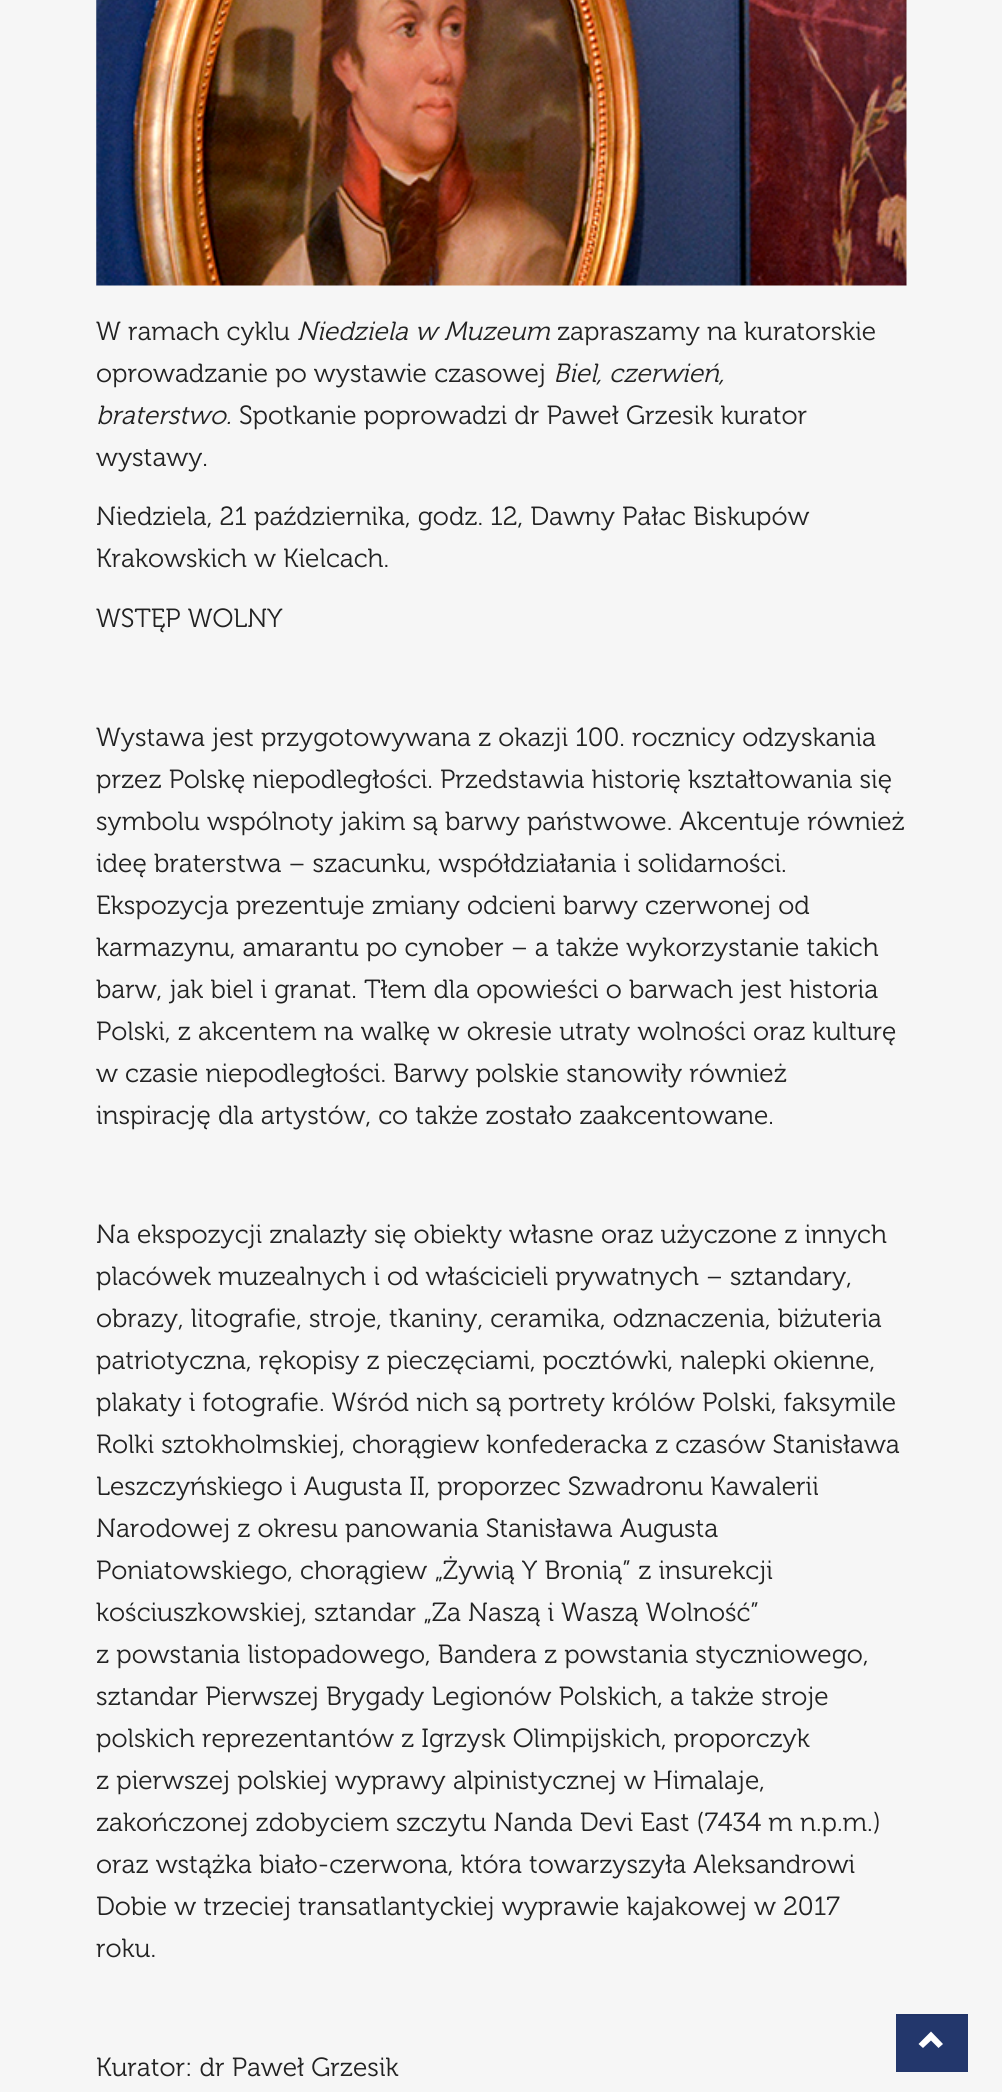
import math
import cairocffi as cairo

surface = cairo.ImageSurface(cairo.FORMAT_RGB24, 1002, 2092)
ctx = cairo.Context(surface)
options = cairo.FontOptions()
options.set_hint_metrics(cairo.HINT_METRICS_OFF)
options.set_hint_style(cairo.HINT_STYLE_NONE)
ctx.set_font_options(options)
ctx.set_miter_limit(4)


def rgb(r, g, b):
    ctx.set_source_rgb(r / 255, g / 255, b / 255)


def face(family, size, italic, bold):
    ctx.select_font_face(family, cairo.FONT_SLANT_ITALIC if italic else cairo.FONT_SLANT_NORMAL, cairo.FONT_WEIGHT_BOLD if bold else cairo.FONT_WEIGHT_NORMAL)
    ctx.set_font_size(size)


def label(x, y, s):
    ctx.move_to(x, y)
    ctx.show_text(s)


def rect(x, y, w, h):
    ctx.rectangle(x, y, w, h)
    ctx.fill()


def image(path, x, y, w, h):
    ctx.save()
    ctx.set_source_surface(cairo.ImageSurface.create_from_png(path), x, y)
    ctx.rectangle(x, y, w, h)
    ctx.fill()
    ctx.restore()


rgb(246, 246, 246)
ctx.paint()
image('image0.png', 96, 0, 811, 286)
face('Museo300', 26.25, 0, 0)
rgb(34, 34, 34)
label(96, 340, 'W ramach cyklu')
face('Museo300', 26.25, 1, 0)
label(297, 340, 'Niedziela w Muzeum')
face('Museo300', 26.25, 0, 0)
label(557, 340, 'zapraszamy na kuratorskie')
label(96, 382, 'oprowadzanie po wystawie czasowej')
face('Museo300', 26.25, 1, 0)
label(553, 382, 'Biel, czerwień,')
label(96, 424, 'braterstwo.')
face('Museo300', 26.25, 0, 0)
label(239, 424, 'Spotkanie poprowadzi dr Paweł Grzesik kurator')
label(96, 466, 'wystawy.')
label(96, 525, 'Niedziela, 21 października, godz. 12, Dawny Pałac Biskupów')
label(96, 567, 'Krakowskich w Kielcach.')
label(96, 627, 'WSTĘP WOLNY')
label(96, 746, 'Wystawa jest przygotowywana z okazji 100. rocznicy odzyskania')
label(96, 788, 'przez Polskę niepodległości. Przedstawia historię kształtowania się')
label(96, 830, 'symbolu wspólnoty jakim są barwy państwowe. Akcentuje również')
label(96, 872, 'ideę braterstwa – szacunku, współdziałania i solidarności.')
label(96, 914, 'Ekspozycja prezentuje zmiany odcieni barwy czerwonej od')
label(96, 956, 'karmazynu, amarantu po cynober – a także wykorzystanie takich')
label(96, 998, 'barw, jak biel i granat. Tłem dla opowieści o barwach jest historia')
label(96, 1040, 'Polski, z akcentem na walkę w okresie utraty wolności oraz kulturę')
label(96, 1082, 'w czasie niepodległości. Barwy polskie stanowiły również')
label(96, 1124, 'inspirację dla artystów, co także zostało zaakcentowane.')
label(96, 1243, 'Na ekspozycji znalazły się obiekty własne oraz użyczone z innych')
label(96, 1285, 'placówek muzealnych i od właścicieli prywatnych – sztandary,')
label(96, 1327, 'obrazy, litografie, stroje, tkaniny, ceramika, odznaczenia, biżuteria')
label(96, 1369, 'patriotyczna, rękopisy z pieczęciami, pocztówki, nalepki okienne,')
label(96, 1411, 'plakaty i fotografie. Wśród nich są portrety królów Polski, faksymile')
label(96, 1453, 'Rolki sztokholmskiej, chorągiew konfederacka z czasów Stanisława')
label(96, 1495, 'Leszczyńskiego i Augusta II, proporzec Szwadronu Kawalerii')
label(96, 1537, 'Narodowej z okresu panowania Stanisława Augusta')
label(96, 1579, 'Poniatowskiego, chorągiew „Żywią Y Bronią” z insurekcji')
label(96, 1621, 'kościuszkowskiej, sztandar „Za Naszą i Waszą Wolność”')
label(96, 1663, 'z powstania listopadowego, Bandera z powstania styczniowego,')
label(96, 1705, 'sztandar Pierwszej Brygady Legionów Polskich, a także stroje')
label(96, 1747, 'polskich reprezentantów z Igrzysk Olimpijskich, proporczyk')
label(96, 1789, 'z pierwszej polskiej wyprawy alpinistycznej w Himalaje,')
label(96, 1831, 'zakończonej zdobyciem szczytu Nanda Devi East (7434 m n.p.m.)')
label(96, 1873, 'oraz wstążka biało-czerwona, która towarzyszyła Aleksandrowi')
label(96, 1915, 'Dobie w trzeciej transatlantyckiej wyprawie kajakowej w 2017')
label(96, 1957, 'roku.')
label(96, 2076, 'Kurator: dr Paweł Grzesik')
rgb(35, 55, 108)
rect(896, 2016, 72, 56)
rgb(33, 52, 103)
rect(896, 2014, 72, 2)
rgb(255, 255, 255)
ctx.new_path()
ctx.move_to(943, 2044)
ctx.line_to(938.5, 2048)
ctx.line_to(931, 2040.5)
ctx.line_to(923, 2048)
ctx.line_to(918.5, 2044)
ctx.line_to(931, 2031.5)
ctx.close_path()
ctx.fill()
surface.write_to_png('render.png')
